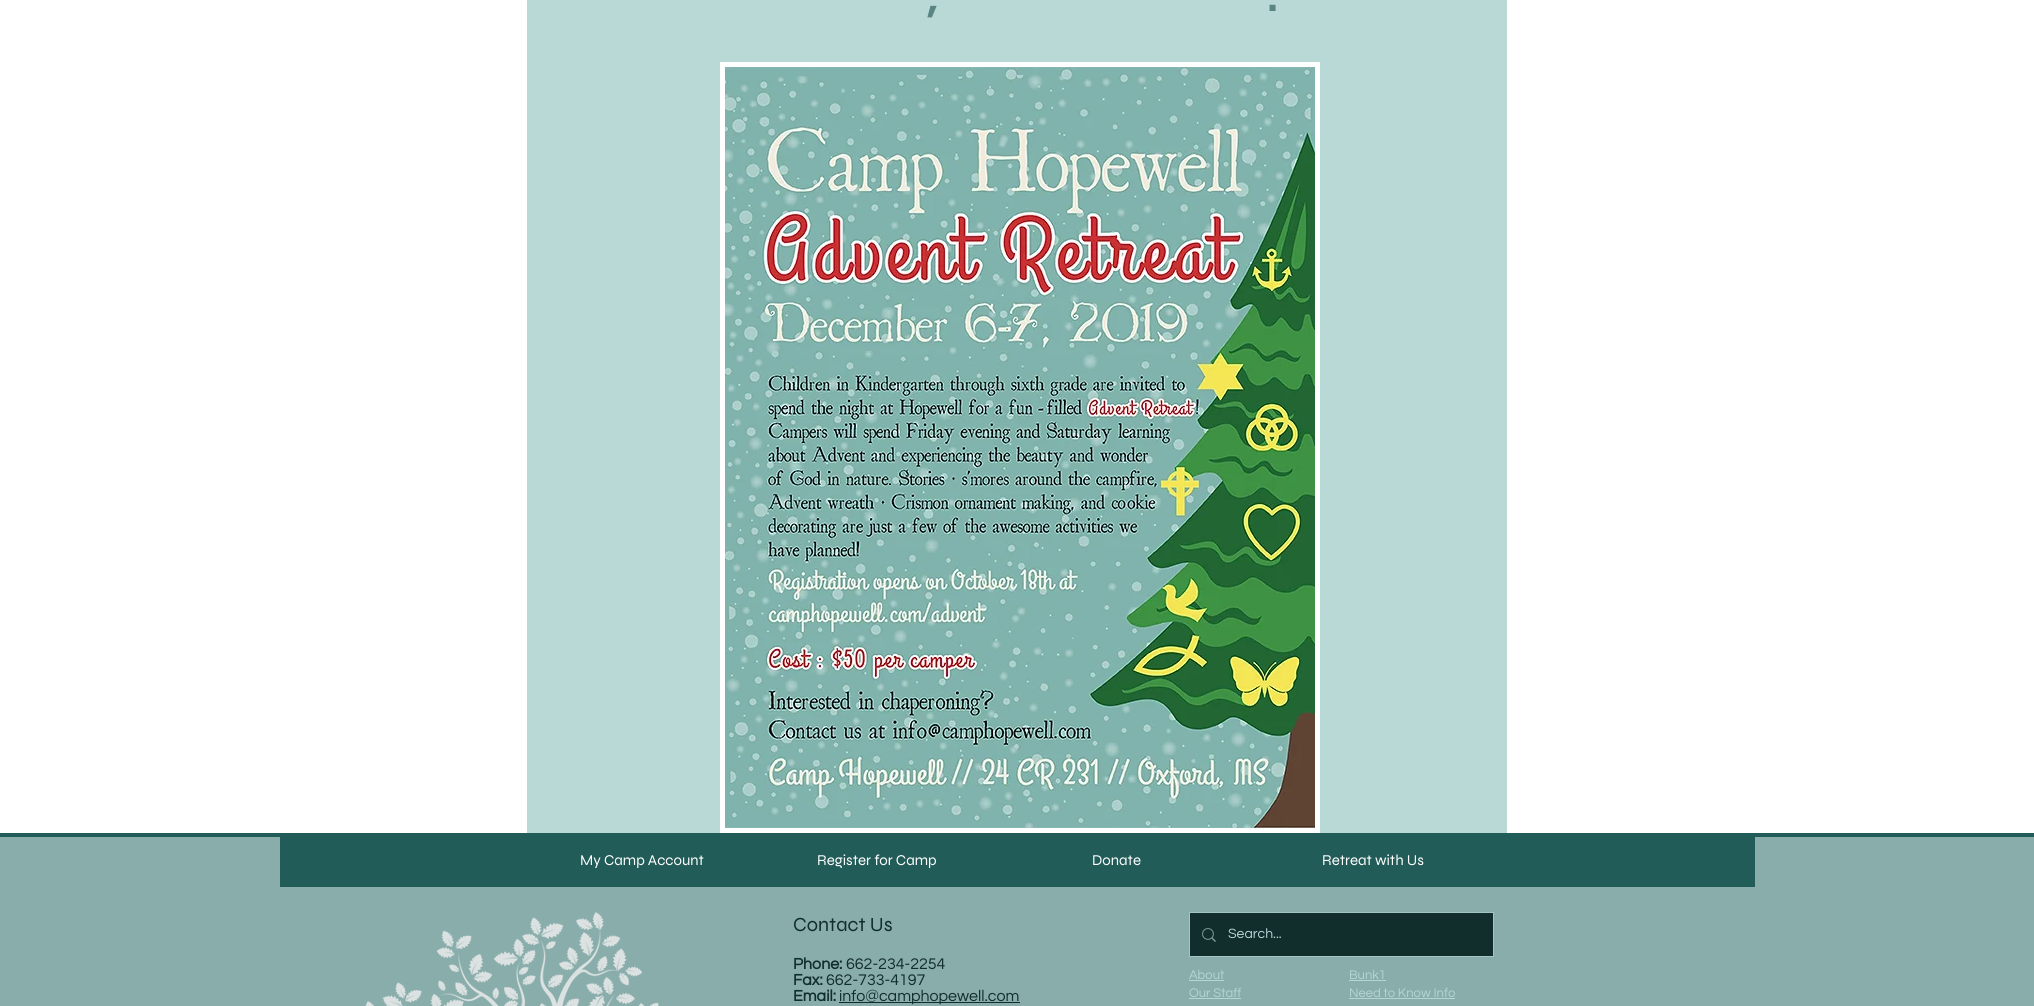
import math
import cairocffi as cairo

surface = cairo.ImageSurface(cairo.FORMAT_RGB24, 2034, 1006)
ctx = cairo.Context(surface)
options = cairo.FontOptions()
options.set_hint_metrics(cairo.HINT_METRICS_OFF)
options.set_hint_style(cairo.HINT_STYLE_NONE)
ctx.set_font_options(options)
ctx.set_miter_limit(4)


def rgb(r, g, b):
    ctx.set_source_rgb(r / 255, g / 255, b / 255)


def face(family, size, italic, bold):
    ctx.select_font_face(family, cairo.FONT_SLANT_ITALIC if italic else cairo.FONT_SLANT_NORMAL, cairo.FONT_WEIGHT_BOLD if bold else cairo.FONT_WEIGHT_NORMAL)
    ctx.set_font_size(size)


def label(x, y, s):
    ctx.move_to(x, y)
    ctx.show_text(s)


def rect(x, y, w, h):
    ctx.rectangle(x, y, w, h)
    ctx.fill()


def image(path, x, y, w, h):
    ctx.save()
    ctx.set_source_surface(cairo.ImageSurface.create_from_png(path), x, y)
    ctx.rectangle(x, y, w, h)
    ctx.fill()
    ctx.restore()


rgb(255, 255, 255)
ctx.paint()
rgb(185, 217, 215)
rect(527, 0, 980, 833)
face('Questrial', 48, 0, 1)
rgb(90, 133, 130)
label(927, 11, ',')
label(1267, 11, '.')
rgb(255, 255, 255)
rect(720, 62, 600, 771)
image('image0.png', 725, 67, 590, 761)
rgb(136, 173, 171)
rect(0, 837, 2034, 169)
rgb(33, 92, 88)
rect(0, 833, 2034, 4)
rect(280, 837, 1475, 50)
face('Syne', 15, 0, 0)
rgb(255, 255, 255)
label(580, 865, 'My Camp Account')
label(817, 865, 'Register for Camp')
label(1092, 865, 'Donate')
label(1322, 865, 'Retreat with Us')
image('image1.png', 365, 912, 294, 94)
face('Syne', 20, 0, 0)
rgb(17, 46, 44)
label(793, 931, 'Contact Us')
ctx.rectangle(1189.5, 912.5, 304, 44)
rgb(162, 198, 196)
ctx.set_line_width(1)
ctx.stroke()
rgb(17, 46, 44)
rect(1190, 913, 303, 43)
image('image2.png', 1202, 928, 14, 14)
face('Questrial', 14, 0, 0)
rgb(180, 214, 212)
label(1228, 938, 'Search...')
face('Questrial', 16, 0, 1)
rgb(17, 46, 44)
label(793, 969, 'Phone:')
face('Questrial', 16, 0, 0)
label(846, 969, '662-234-2254')
face('Questrial', 16, 0, 1)
label(793, 985, 'Fax:')
face('Questrial', 16, 0, 0)
label(826, 985, '662-733-4197')
face('Questrial', 16, 0, 1)
label(793, 1001, 'Email:')
rect(839, 1002, 181, 1)
face('Questrial', 16, 0, 0)
label(839, 1001, 'info@camphopewell.com')
face('Questrial', 13, 0, 0)
rgb(180, 214, 212)
label(1189, 979, 'About')
rect(1189, 980, 35, 1)
label(1189, 997, 'Our Staff')
rect(1189, 998, 52, 1)
label(1349, 979, 'Bunk1')
rect(1349, 980, 37, 1)
label(1349, 997, 'Need to Know Info')
rect(1349, 998, 106, 1)
surface.write_to_png('render.png')
